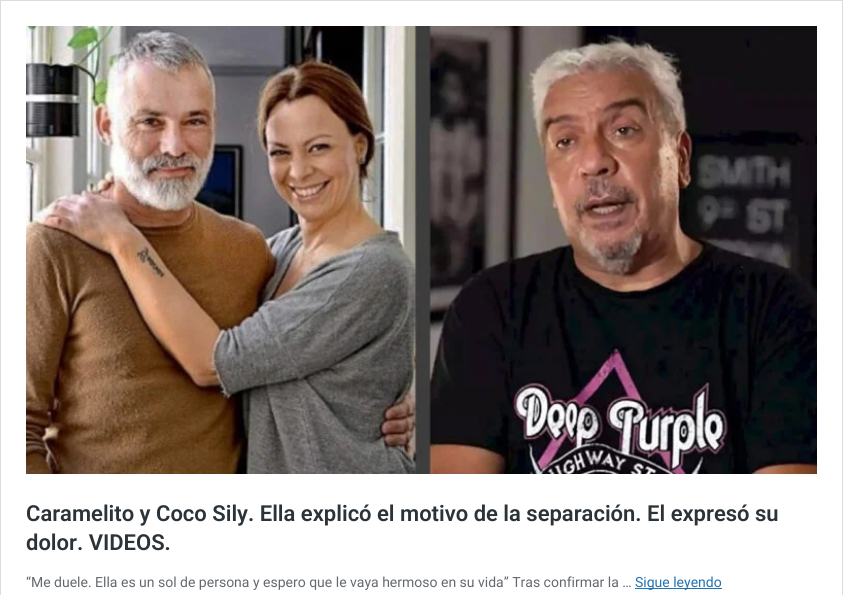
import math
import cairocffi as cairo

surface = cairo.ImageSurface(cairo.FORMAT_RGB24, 843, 595)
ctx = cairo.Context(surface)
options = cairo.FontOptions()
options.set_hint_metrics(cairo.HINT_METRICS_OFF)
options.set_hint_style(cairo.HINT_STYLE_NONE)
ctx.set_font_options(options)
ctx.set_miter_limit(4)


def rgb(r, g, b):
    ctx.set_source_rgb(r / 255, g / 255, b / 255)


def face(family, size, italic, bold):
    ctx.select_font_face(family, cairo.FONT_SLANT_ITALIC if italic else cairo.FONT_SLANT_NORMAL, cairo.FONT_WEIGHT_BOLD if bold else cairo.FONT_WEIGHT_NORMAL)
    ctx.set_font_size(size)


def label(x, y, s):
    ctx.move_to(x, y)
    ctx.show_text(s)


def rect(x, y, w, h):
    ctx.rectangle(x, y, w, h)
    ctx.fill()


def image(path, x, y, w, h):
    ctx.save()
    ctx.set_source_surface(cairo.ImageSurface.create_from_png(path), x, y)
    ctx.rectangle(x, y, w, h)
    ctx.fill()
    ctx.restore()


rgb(255, 255, 255)
ctx.paint()
ctx.rectangle(0.5, 0.5, 842, 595)
rgb(220, 220, 222)
ctx.set_line_width(1)
ctx.stroke()
image('image0.png', 26, 26, 791, 448)
face('Roboto SemiBold', 22, 0, 0)
rgb(44, 51, 56)
label(26, 521, 'Caramelito y Coco Sily. Ella explicó el motivo de la separación. El expresó su')
label(26, 550, 'dolor. VIDEOS.')
face('Roboto', 14, 0, 0)
rgb(100, 105, 112)
label(26, 587, '“Me duele. Ella es un sol de persona y espero que le vaya hermoso en su vida” Tras confirmar la …')
rgb(34, 113, 177)
rect(635, 588, 87, 1)
label(635, 587, 'Sigue leyendo')
surface.write_to_png('render.png')
